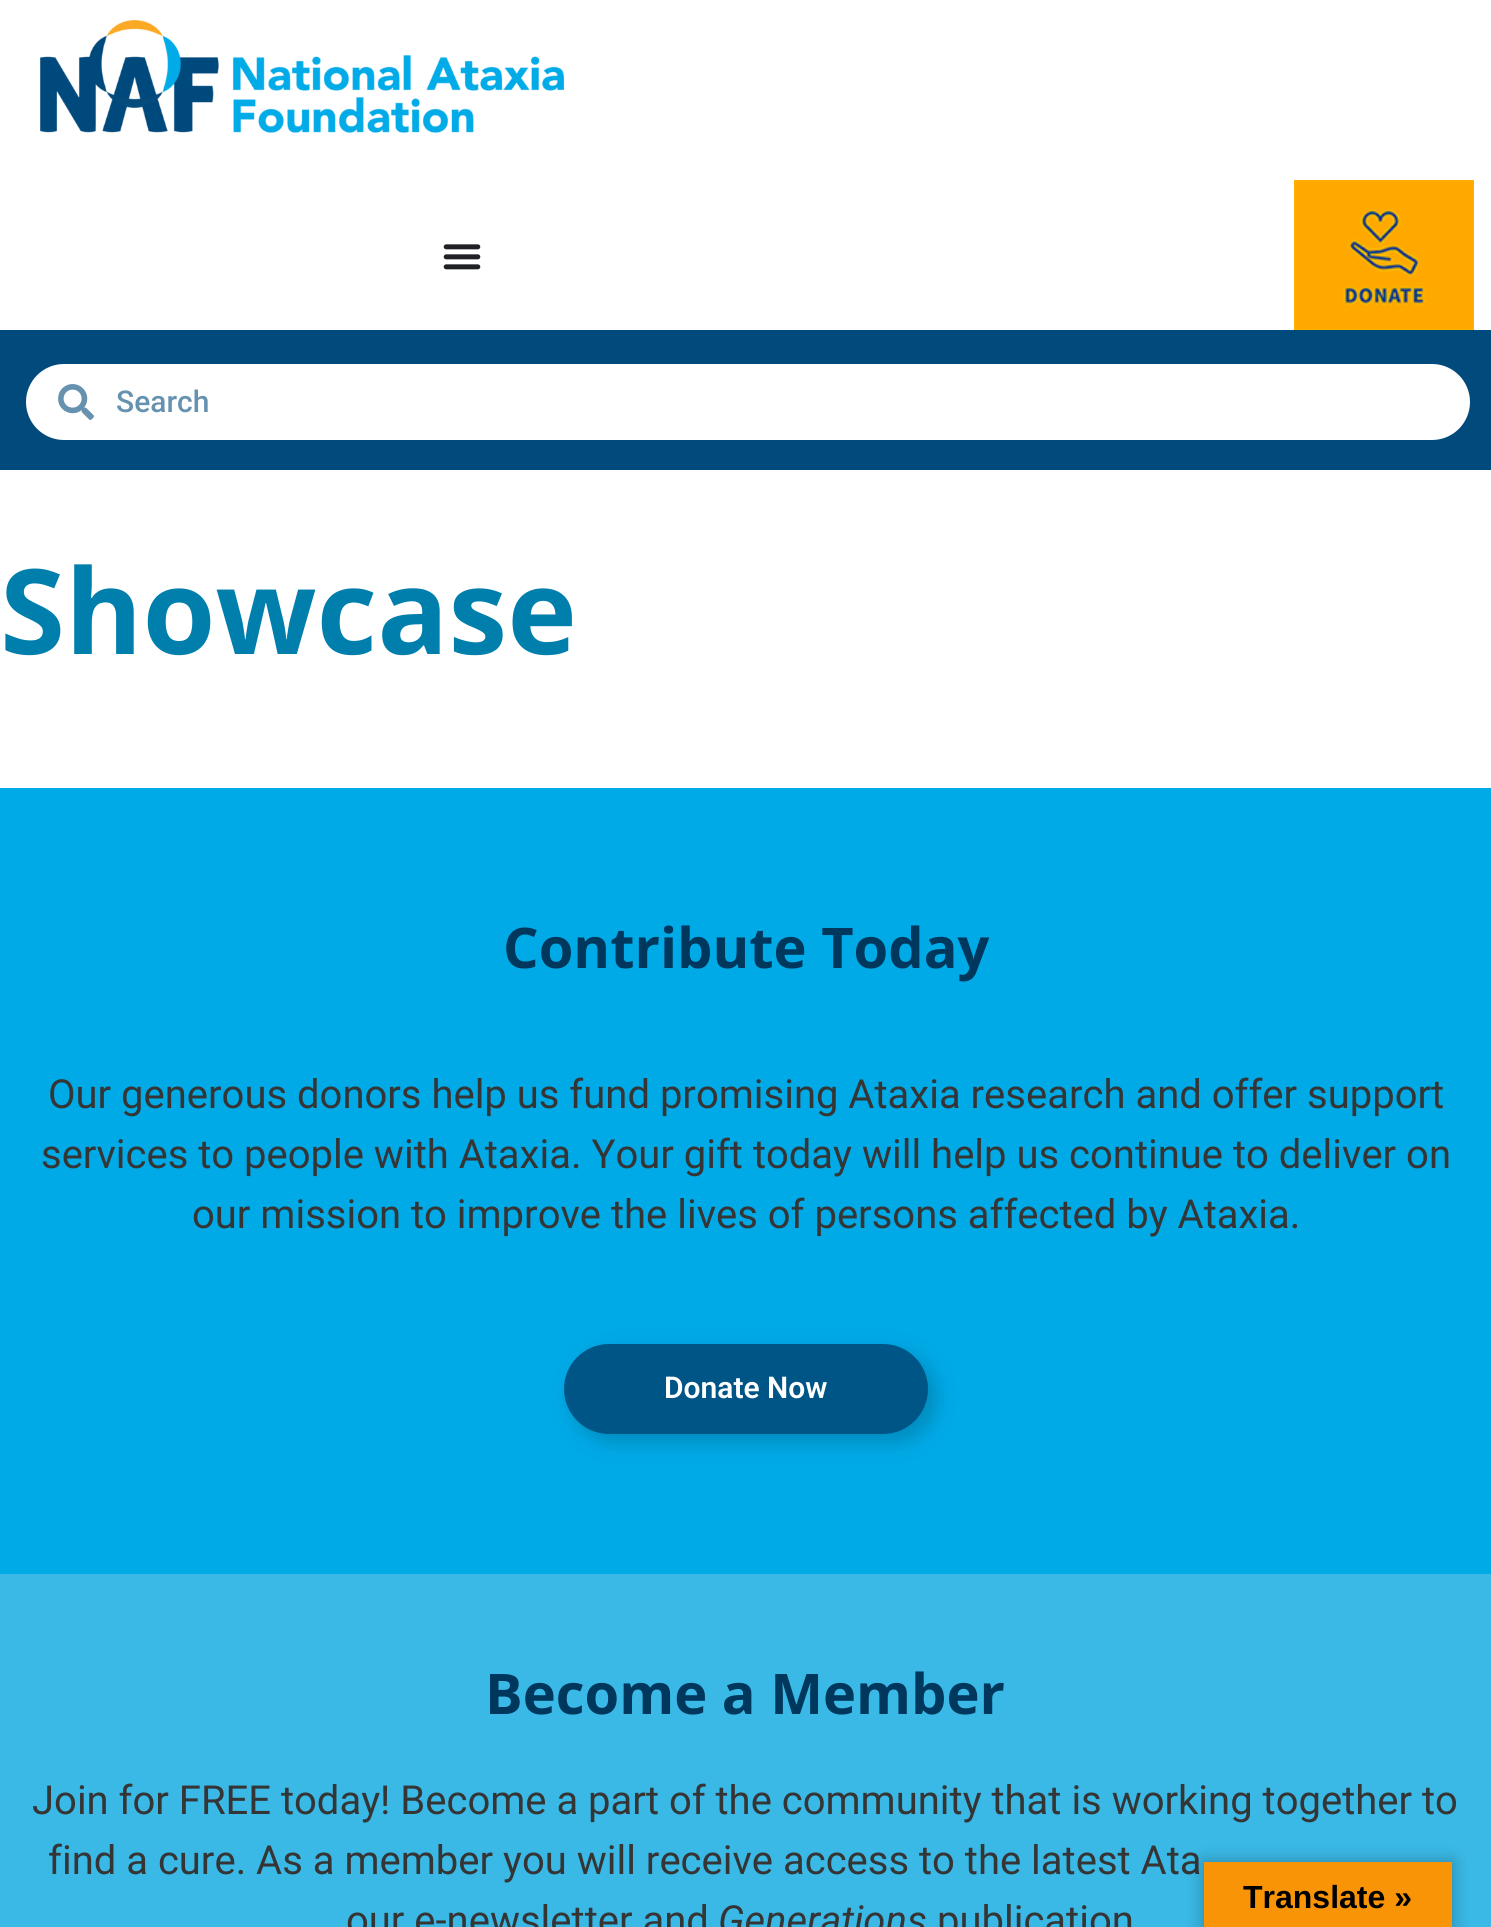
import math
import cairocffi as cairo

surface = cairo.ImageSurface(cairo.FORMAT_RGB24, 1491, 1927)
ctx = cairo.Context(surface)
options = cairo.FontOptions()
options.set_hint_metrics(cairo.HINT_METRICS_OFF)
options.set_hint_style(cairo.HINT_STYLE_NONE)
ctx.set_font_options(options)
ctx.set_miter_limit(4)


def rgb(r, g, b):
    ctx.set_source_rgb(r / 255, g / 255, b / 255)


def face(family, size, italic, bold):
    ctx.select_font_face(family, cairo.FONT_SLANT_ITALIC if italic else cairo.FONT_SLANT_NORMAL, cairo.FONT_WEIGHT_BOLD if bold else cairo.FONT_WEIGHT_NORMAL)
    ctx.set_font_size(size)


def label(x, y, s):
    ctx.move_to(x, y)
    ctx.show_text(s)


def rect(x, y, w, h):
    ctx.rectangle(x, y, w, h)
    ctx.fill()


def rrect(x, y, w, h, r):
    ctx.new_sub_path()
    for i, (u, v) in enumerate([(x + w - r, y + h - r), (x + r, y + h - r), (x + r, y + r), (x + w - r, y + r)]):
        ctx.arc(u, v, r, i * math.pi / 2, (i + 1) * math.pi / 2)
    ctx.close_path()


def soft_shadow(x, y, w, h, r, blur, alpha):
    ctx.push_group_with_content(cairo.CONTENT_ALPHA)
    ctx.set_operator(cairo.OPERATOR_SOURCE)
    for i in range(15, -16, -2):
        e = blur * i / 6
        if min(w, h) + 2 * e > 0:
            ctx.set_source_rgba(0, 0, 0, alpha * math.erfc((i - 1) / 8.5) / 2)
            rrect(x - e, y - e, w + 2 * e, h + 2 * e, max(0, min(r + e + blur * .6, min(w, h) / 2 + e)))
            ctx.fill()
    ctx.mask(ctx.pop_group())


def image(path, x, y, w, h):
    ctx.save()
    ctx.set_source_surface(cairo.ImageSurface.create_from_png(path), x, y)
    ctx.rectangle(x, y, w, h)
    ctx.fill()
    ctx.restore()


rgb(255, 255, 255)
ctx.paint()
image('image0.png', 40, 20, 524, 113)
image('image1.png', 443, 244, 38, 26)
image('image2.png', 1294, 180, 180, 150)
rgb(0, 74, 124)
rect(0, 330, 1491, 140)
rgb(255, 255, 255)
rrect(26, 364, 1444, 76, 38)
ctx.fill()
image('image3.png', 58, 384, 36, 36)
face('Roboto Medium', 30, 0, 0)
rgb(102, 146, 176)
label(116, 412, 'Search')
face('Open Sans', 118, 0, 1)
rgb(0, 127, 173)
label(0, 654, 'Showcase')
rgb(0, 170, 231)
rect(0, 788, 1491, 786)
face('Open Sans', 56, 0, 1)
rgb(0, 55, 92)
label(503, 968, 'Contribute Today')
face('Roboto', 40, 0, 0)
rgb(53, 53, 53)
label(48, 1108, 'Our generous donors help us fund promising Ataxia research and offer support')
label(41, 1168, 'services to people with Ataxia. Your gift today will help us continue to deliver on')
label(192, 1228, 'our mission to improve the lives of persons affected by Ataxia.')
rgb(0, 0, 0)
soft_shadow(572, 1352, 364, 90, 45, 10, 0.19)
rgb(0, 85, 135)
rrect(564, 1344, 364, 90, 45)
ctx.fill()
face('Roboto SemiBold', 30, 0, 0)
rgb(255, 255, 255)
label(664, 1398, 'Donate Now')
rgb(58, 185, 231)
rect(0, 1574, 1491, 353)
face('Open Sans', 56, 0, 1)
rgb(0, 55, 92)
label(485, 1714, 'Become a Member')
face('Roboto', 40, 0, 0)
rgb(53, 53, 53)
label(32, 1814, 'Join for FREE today! Become a part of the community that is working together to')
label(48, 1874, 'find a cure. As a member you will receive access to the latest Ata')
label(346, 1934, 'our e-newsletter and')
face('Roboto', 40, 1, 0)
label(718, 1934, 'Generations')
face('Roboto', 40, 0, 0)
label(937, 1934, 'publication')
rgb(0, 0, 0)
soft_shadow(1204, 1862, 248, 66, 0, 9, 0.3)
rgb(248, 148, 6)
rect(1204, 1862, 248, 65)
face('Liberation Sans', 32, 0, 1)
rgb(0, 0, 0)
label(1243, 1908, 'Translate »')
surface.write_to_png('render.png')
